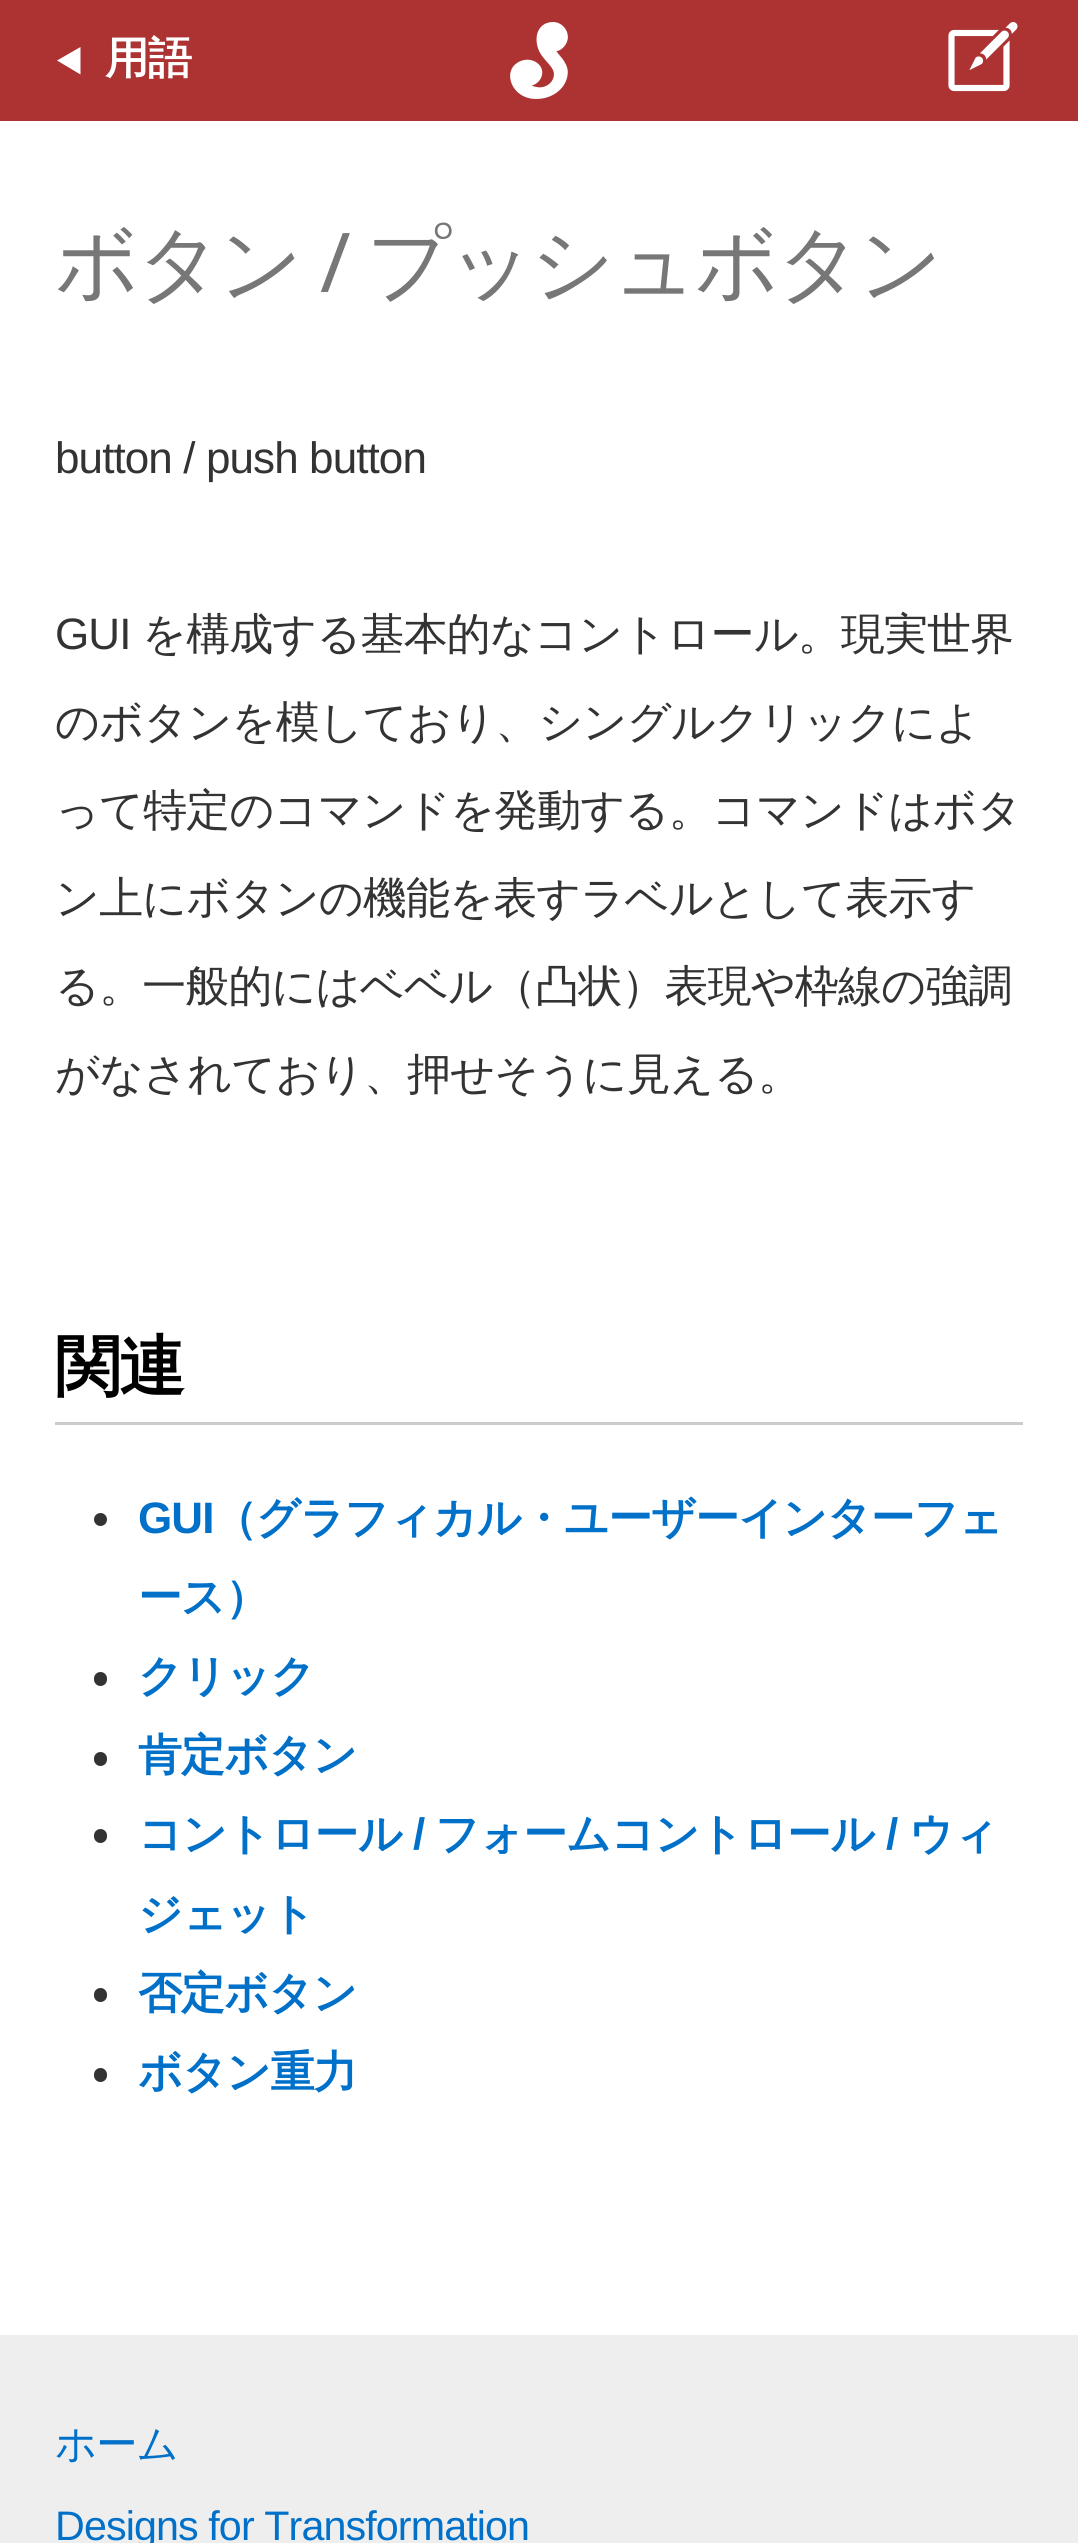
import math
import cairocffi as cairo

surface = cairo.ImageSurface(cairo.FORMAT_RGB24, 1078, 2543)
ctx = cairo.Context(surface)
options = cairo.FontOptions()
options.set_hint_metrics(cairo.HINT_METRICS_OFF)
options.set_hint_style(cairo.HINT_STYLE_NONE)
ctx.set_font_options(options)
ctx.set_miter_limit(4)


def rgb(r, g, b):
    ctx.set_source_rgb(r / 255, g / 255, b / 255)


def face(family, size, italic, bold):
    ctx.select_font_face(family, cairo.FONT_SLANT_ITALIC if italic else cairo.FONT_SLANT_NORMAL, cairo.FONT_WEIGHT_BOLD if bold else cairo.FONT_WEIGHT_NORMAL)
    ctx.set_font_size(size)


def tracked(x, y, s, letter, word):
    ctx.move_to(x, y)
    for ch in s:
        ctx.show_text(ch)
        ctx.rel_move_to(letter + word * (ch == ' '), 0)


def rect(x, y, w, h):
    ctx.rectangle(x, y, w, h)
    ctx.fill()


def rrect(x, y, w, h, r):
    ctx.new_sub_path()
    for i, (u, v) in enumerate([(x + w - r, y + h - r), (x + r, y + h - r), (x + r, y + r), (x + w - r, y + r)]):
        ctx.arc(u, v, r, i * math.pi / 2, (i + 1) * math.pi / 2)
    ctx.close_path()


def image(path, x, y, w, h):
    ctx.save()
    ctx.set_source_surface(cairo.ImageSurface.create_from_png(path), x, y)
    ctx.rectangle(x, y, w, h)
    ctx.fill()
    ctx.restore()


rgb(238, 238, 238)
ctx.paint()
rgb(173, 51, 51)
rect(0, 0, 1078, 121)
rgb(255, 255, 255)
ctx.new_path()
ctx.move_to(57, 60.5)
ctx.line_to(80.5, 74.5)
ctx.line_to(80.5, 47)
ctx.close_path()
ctx.fill()
face('WenQuanYi Zen Hei', 44, 0, 1)
tracked(105, 73, '用語', -0.9, 0)
image('image0.png', 510, 22, 58, 77)
image('image1.png', 948, 22, 70, 70)
rect(0, 121, 1078, 2214)
face('WenQuanYi Zen Hei Medium', 82.5, 0, 0)
rgb(119, 119, 119)
tracked(55, 292, 'ボタン', -2.5, 0)
face('Noto Sans', 82.5, 0, 0)
tracked(320, 292, '/', -2.5, 0)
face('WenQuanYi Zen Hei Medium', 82.5, 0, 0)
tracked(367, 292, 'プッシュボタン', -2.5, 0)
face('Liberation Sans', 44, 0, 0)
rgb(51, 51, 51)
tracked(55, 473, 'button / push button', -0.9, 0)
tracked(55, 649, 'GUI', -0.9, 0)
face('WenQuanYi Zen Hei Medium', 44, 0, 0)
tracked(142, 649, 'を構成する基本的なコントロール。現実世界', -0.9, 0)
tracked(55, 737, 'のボタンを模しており、シングルクリックによ', -0.9, 0)
tracked(55, 825, 'って特定のコマンドを発動する。コマンドはボタ', -0.9, 0)
tracked(55, 913, 'ン上にボタンの機能を表すラベルとして表示す', -0.9, 0)
tracked(55, 1001, 'る。一般的にはベベル（凸状）表現や枠線の強調', -0.9, 0)
tracked(55, 1089, 'がなされており、押せそうに見える。', -0.9, 0)
face('WenQuanYi Zen Hei', 66, 0, 1)
rgb(0, 0, 0)
tracked(55, 1389, '関連', -2, 0)
rgb(204, 204, 204)
rect(55, 1422, 968, 3)
rgb(51, 51, 51)
ctx.new_path()
ctx.arc(100.5, 1519.5, 6.5, 0, 2 * math.pi)
ctx.fill()
face('Liberation Sans', 44, 0, 1)
rgb(0, 112, 201)
tracked(138, 1533, 'GUI', -0.9, 0)
face('WenQuanYi Zen Hei', 44, 0, 1)
tracked(213, 1533, '（グラフィカル・ユーザーインターフェ', -0.9, 0)
tracked(138, 1612, 'ース）', -0.9, 0)
rgb(51, 51, 51)
rrect(94, 1672, 13, 14, 6.5)
ctx.fill()
rgb(0, 112, 201)
tracked(138, 1691, 'クリック', -0.9, 0)
rgb(51, 51, 51)
rrect(94, 1752, 13, 14, 6.5)
ctx.fill()
rgb(0, 112, 201)
tracked(138, 1770, '肯定ボタン', -0.9, 0)
rgb(51, 51, 51)
rrect(94, 1829, 13, 14, 6.5)
ctx.fill()
rgb(0, 112, 201)
tracked(138, 1849, 'コントロール', -0.9, 0)
face('Liberation Sans', 44, 0, 1)
tracked(413, 1849, '/', -0.9, 0)
face('WenQuanYi Zen Hei', 44, 0, 1)
tracked(435, 1849, 'フォームコントロール', -0.9, 0)
face('Liberation Sans', 44, 0, 1)
tracked(886, 1849, '/', -0.9, 0)
face('WenQuanYi Zen Hei', 44, 0, 1)
tracked(909, 1849, 'ウィ', -0.9, 0)
tracked(138, 1929, 'ジェット', -0.9, 0)
rgb(51, 51, 51)
rrect(94, 1988, 13, 14, 6.5)
ctx.fill()
rgb(0, 112, 201)
tracked(138, 2008, '否定ボタン', -0.9, 0)
rgb(51, 51, 51)
rrect(94, 2068, 13, 14, 6.5)
ctx.fill()
rgb(0, 112, 201)
tracked(138, 2087, 'ボタン重力', -0.9, 0)
face('WenQuanYi Zen Hei Medium', 41.25, 0, 0)
tracked(55, 2458, 'ホーム', -0.9, 0)
face('Liberation Sans', 41.25, 0, 0)
tracked(55, 2540, 'Designs for Transformation', -0.9, 0)
surface.write_to_png('render.png')
